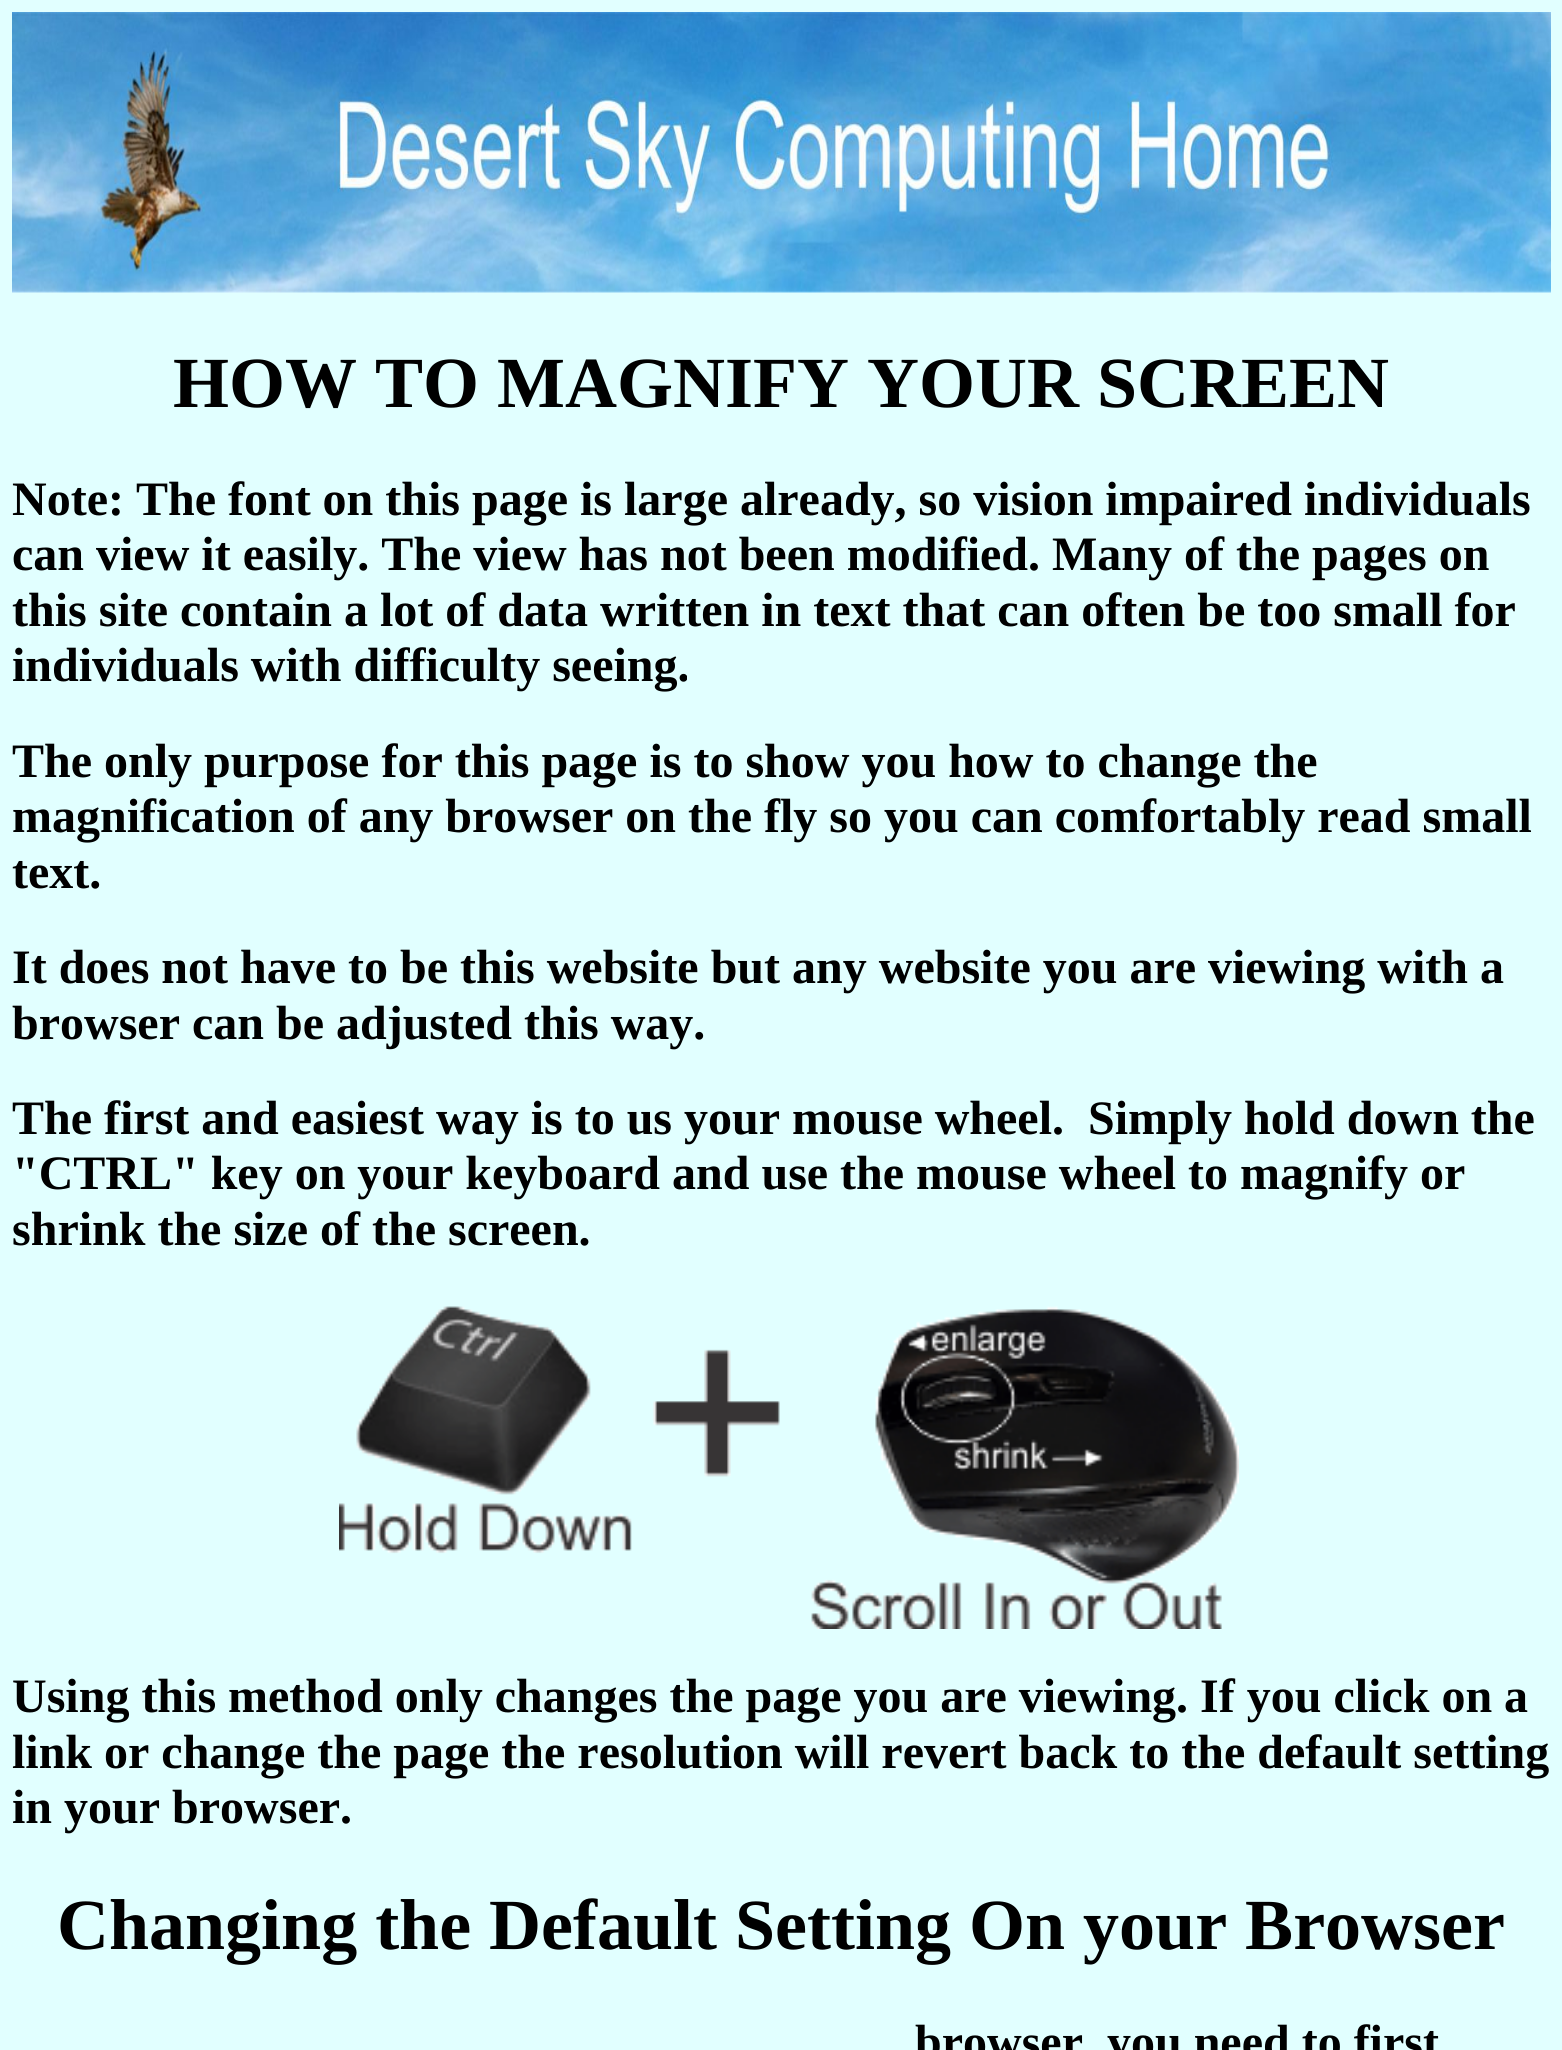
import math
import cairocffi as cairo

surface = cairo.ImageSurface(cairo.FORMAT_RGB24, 1562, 2050)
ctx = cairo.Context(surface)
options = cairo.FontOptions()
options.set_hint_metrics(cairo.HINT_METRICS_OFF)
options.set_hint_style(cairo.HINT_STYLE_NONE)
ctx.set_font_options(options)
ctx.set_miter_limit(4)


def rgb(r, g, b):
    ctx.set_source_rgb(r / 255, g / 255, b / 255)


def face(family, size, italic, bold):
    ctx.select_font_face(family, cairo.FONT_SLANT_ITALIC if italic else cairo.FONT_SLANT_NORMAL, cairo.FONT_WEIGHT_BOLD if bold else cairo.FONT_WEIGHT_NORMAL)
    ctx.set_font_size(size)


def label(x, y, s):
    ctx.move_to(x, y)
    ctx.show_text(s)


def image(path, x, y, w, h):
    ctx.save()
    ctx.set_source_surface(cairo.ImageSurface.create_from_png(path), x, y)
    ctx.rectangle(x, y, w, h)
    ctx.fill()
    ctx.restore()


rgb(225, 255, 255)
ctx.paint()
image('image0.png', 12, 12, 1539, 281)
face('Liberation Serif', 72, 0, 1)
rgb(0, 0, 0)
label(173, 407, 'HOW TO MAGNIFY YOUR SCREEN')
face('Liberation Serif', 48, 0, 1)
label(12, 515, 'Note: The font on this page is large already, so vision impaired individuals')
label(12, 570, 'can view it easily. The view has not been modified. Many of the pages on')
label(12, 626, 'this site contain a lot of data written in text that can often be too small for')
label(12, 681, 'individuals with difficulty seeing.')
label(12, 777, 'The only purpose for this page is to show you how to change the')
label(12, 832, 'magnification of any browser on the fly so you can comfortably read small')
label(12, 888, 'text.')
label(12, 983, 'It does not have to be this website but any website you are viewing with a')
label(12, 1039, 'browser can be adjusted this way.')
label(12, 1134, 'The first and easiest way is to us your mouse wheel.  Simply hold down the')
label(12, 1189, '"CTRL" key on your keyboard and use the mouse wheel to magnify or')
label(12, 1245, 'shrink the size of the screen.')
image('image1.png', 339, 1306, 900, 323)
label(12, 1712, 'Using this method only changes the page you are viewing. If you click on a')
label(12, 1768, 'link or change the page the resolution will revert back to the default setting')
label(12, 1823, 'in your browser.')
face('Liberation Serif', 72, 0, 1)
label(57, 1949, 'Changing the Default Setting On your Browser')
face('Liberation Serif', 48, 0, 1)
label(915, 2058, 'browser, you need to first')
surface.write_to_png('render.png')
